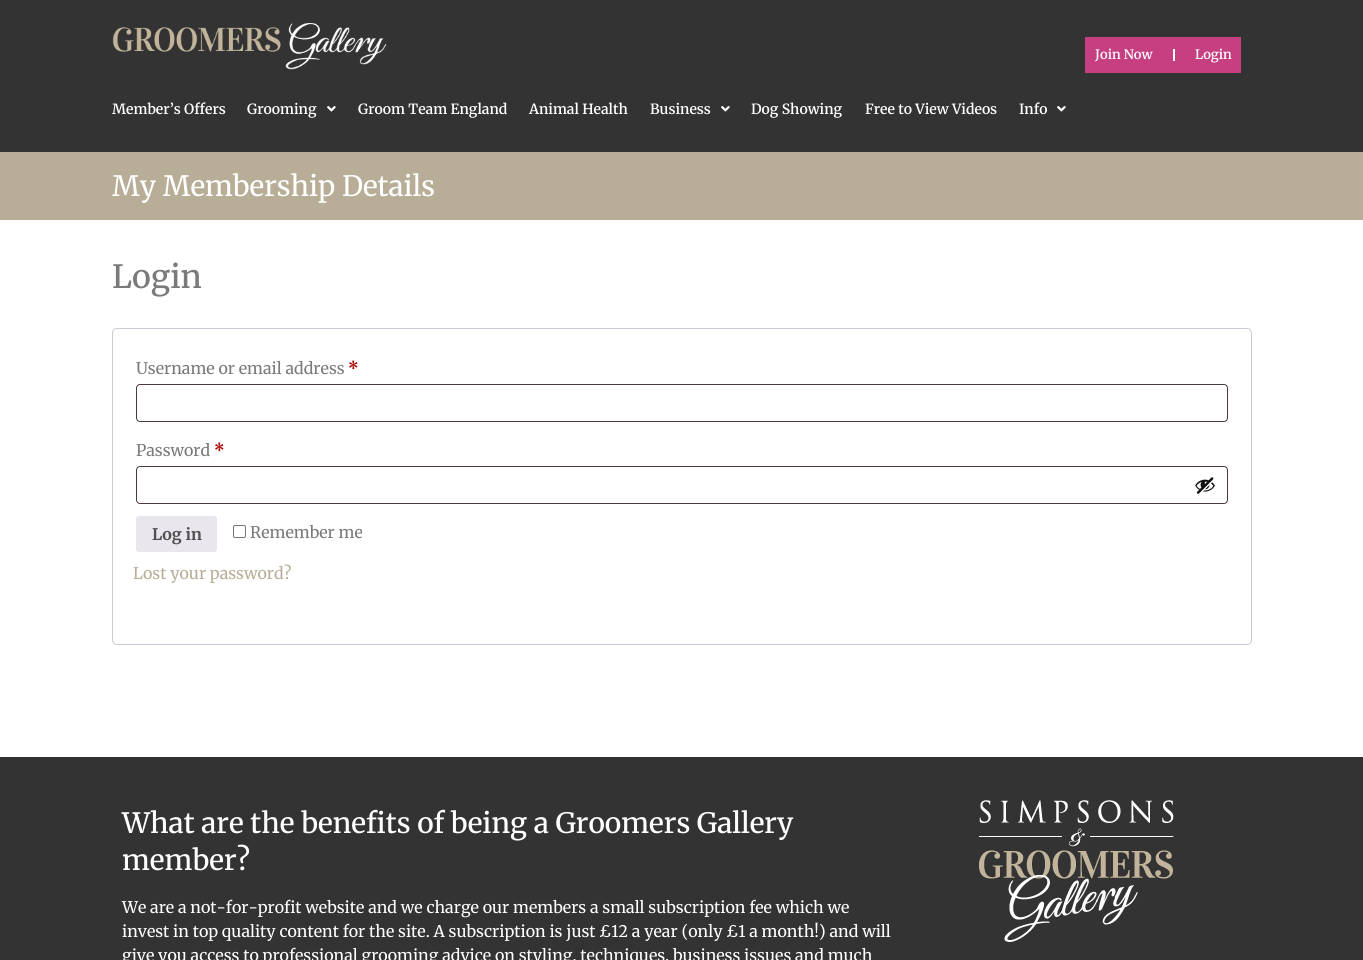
import math
import cairocffi as cairo

surface = cairo.ImageSurface(cairo.FORMAT_RGB24, 1363, 960)
ctx = cairo.Context(surface)
options = cairo.FontOptions()
options.set_hint_metrics(cairo.HINT_METRICS_OFF)
options.set_hint_style(cairo.HINT_STYLE_NONE)
ctx.set_font_options(options)
ctx.set_miter_limit(4)


def rgb(r, g, b):
    ctx.set_source_rgb(r / 255, g / 255, b / 255)


def face(family, size, italic, bold):
    ctx.select_font_face(family, cairo.FONT_SLANT_ITALIC if italic else cairo.FONT_SLANT_NORMAL, cairo.FONT_WEIGHT_BOLD if bold else cairo.FONT_WEIGHT_NORMAL)
    ctx.set_font_size(size)


def label(x, y, s):
    ctx.move_to(x, y)
    ctx.show_text(s)


def rect(x, y, w, h):
    ctx.rectangle(x, y, w, h)
    ctx.fill()


def rrect(x, y, w, h, r):
    ctx.new_sub_path()
    for i, (u, v) in enumerate([(x + w - r, y + h - r), (x + r, y + h - r), (x + r, y + r), (x + w - r, y + r)]):
        ctx.arc(u, v, r, i * math.pi / 2, (i + 1) * math.pi / 2)
    ctx.close_path()


def image(path, x, y, w, h):
    ctx.save()
    ctx.set_source_surface(cairo.ImageSurface.create_from_png(path), x, y)
    ctx.rectangle(x, y, w, h)
    ctx.fill()
    ctx.restore()


rgb(255, 255, 255)
ctx.paint()
rgb(51, 51, 51)
rect(0, 0, 1363, 152)
image('image0.png', 112, 23, 275, 47)
rgb(197, 63, 129)
rect(1085, 37, 156, 36)
face('Merriweather SemiBold', 13, 0, 0)
rgb(255, 255, 255)
label(1095, 59, 'Join Now')
rect(1173, 49, 2, 12)
label(1195, 59, 'Login')
face('Merriweather SemiBold', 14, 0, 0)
label(112, 114, 'Member’s Offers')
label(247, 114, 'Grooming')
image('image1.png', 327, 106, 9, 6)
label(358, 114, 'Groom Team England')
label(529, 114, 'Animal Health')
label(650, 114, 'Business')
image('image1.png', 721, 106, 9, 6)
label(751, 114, 'Dog Showing')
label(865, 114, 'Free to View Videos')
label(1019, 114, 'Info')
image('image1.png', 1057, 106, 9, 6)
rgb(184, 174, 151)
rect(0, 152, 1363, 68)
face('Merriweather Light', 28, 0, 0)
rgb(255, 255, 255)
label(112, 196, 'My Membership Details')
face('Merriweather Medium', 32, 0, 0)
rgb(122, 122, 122)
label(112, 288, 'Login')
rrect(112.5, 328.5, 1139, 316, 4.5)
rgb(207, 200, 216)
ctx.set_line_width(1)
ctx.stroke()
face('Merriweather Light', 16, 0, 0)
rgb(122, 122, 122)
label(136, 374, 'Username or email address')
face('Merriweather', 16, 0, 1)
rgb(170, 0, 0)
label(348, 374, '*')
rrect(136.5, 384.5, 1091, 37, 3.5)
rgb(77, 57, 57)
ctx.stroke()
face('Merriweather Light', 16, 0, 0)
rgb(122, 122, 122)
label(136, 456, 'Password')
face('Merriweather', 16, 0, 1)
rgb(170, 0, 0)
label(214, 456, '*')
rrect(136.5, 466.5, 1091, 37, 3.5)
rgb(77, 57, 57)
ctx.stroke()
image('image2.png', 1195, 477, 20, 17)
rgb(233, 230, 237)
rrect(136, 516, 81, 36, 3)
ctx.fill()
rgb(81, 81, 81)
label(152, 540, 'Log in')
rrect(233.5, 525.5, 12, 12, 1.5)
rgb(118, 118, 118)
ctx.stroke()
face('Merriweather Light', 16, 0, 0)
rgb(122, 122, 122)
label(250, 538, 'Remember me')
rgb(184, 174, 151)
label(133, 579, 'Lost your password?')
rgb(51, 51, 51)
rect(0, 757, 1363, 203)
face('Merriweather Medium', 28, 0, 0)
rgb(255, 255, 255)
label(122, 833, 'What are the benefits of being a Groomers Gallery')
label(122, 870, 'member?')
face('Merriweather Light', 16, 0, 0)
label(122, 913, 'We are a not-for-profit website and we charge our members a small subscription fee which we')
label(122, 937, 'invest in top quality content for the site. A subscription is just £12 a year (only £1 a month!) and will')
label(122, 961, 'give you access to professional grooming advice on styling, techniques, business issues and much')
image('image3.png', 979, 800, 195, 142)
surface.write_to_png('render.png')
